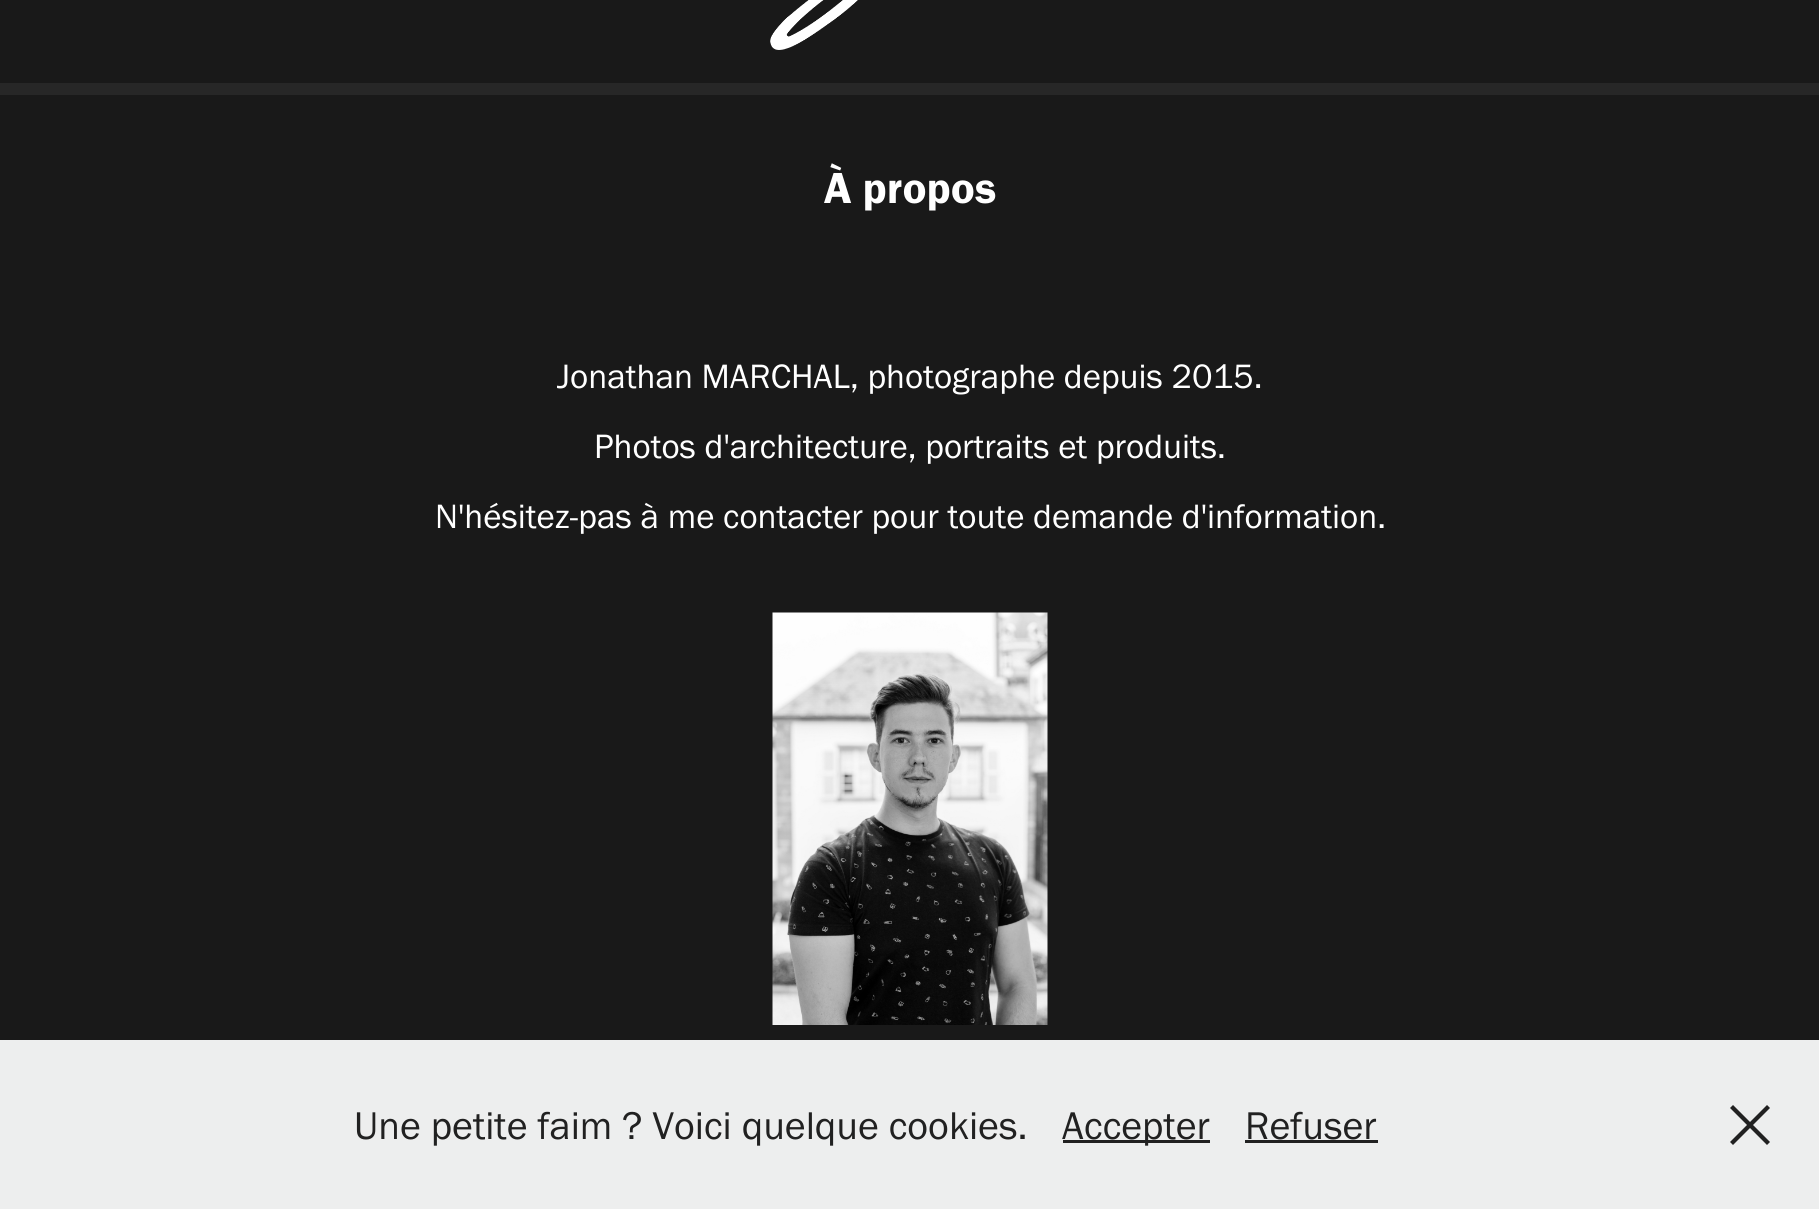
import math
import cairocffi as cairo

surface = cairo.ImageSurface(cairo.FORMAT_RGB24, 1819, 1209)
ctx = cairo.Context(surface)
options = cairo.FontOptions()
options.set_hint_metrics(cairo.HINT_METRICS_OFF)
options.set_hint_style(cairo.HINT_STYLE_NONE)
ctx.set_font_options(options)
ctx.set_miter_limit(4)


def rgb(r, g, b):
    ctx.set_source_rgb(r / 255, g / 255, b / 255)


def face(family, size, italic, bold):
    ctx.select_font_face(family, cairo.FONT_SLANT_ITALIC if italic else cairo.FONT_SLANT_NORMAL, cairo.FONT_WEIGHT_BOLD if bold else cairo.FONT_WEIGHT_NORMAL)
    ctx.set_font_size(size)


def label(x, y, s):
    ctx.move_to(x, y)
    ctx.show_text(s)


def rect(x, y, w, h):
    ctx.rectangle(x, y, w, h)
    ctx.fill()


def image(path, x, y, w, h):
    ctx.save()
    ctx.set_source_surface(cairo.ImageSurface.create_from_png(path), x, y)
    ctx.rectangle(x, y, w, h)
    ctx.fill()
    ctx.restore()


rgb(25, 25, 25)
ctx.paint()
rgb(39, 39, 39)
rect(0, 83, 1819, 12)
image('image0.png', 770, 0, 88, 50)
face('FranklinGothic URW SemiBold', 45, 0, 0)
rgb(255, 255, 255)
label(824, 203, 'À propos')
face('FranklinGothic URW', 35, 0, 0)
label(557, 388, 'Jonathan MARCHAL, photographe depuis 2015.')
label(594, 458, 'Photos d\'architecture, portraits et produits.')
label(435, 528, 'N\'hésitez-pas à me contacter pour toute demande d\'information.')
image('image1.png', 772, 612, 276, 413)
rgb(237, 238, 238)
rect(0, 1040, 1819, 169)
face('FranklinGothic URW', 40, 0, 0)
rgb(33, 33, 33)
label(354, 1139, 'Une petite faim ? Voici quelque cookies.')
rect(1063, 1140, 147, 3)
label(1062, 1139, 'Accepter')
label(1245, 1139, 'Refuser')
rect(1245, 1140, 133, 3)
ctx.new_path()
ctx.move_to(1730, 1108)
ctx.line_to(1733, 1105)
ctx.line_to(1770, 1142)
ctx.line_to(1767, 1145)
ctx.close_path()
ctx.fill()
ctx.new_path()
ctx.move_to(1733, 1145)
ctx.line_to(1730, 1142)
ctx.line_to(1767, 1105)
ctx.line_to(1770, 1108)
ctx.close_path()
ctx.fill()
surface.write_to_png('render.png')
